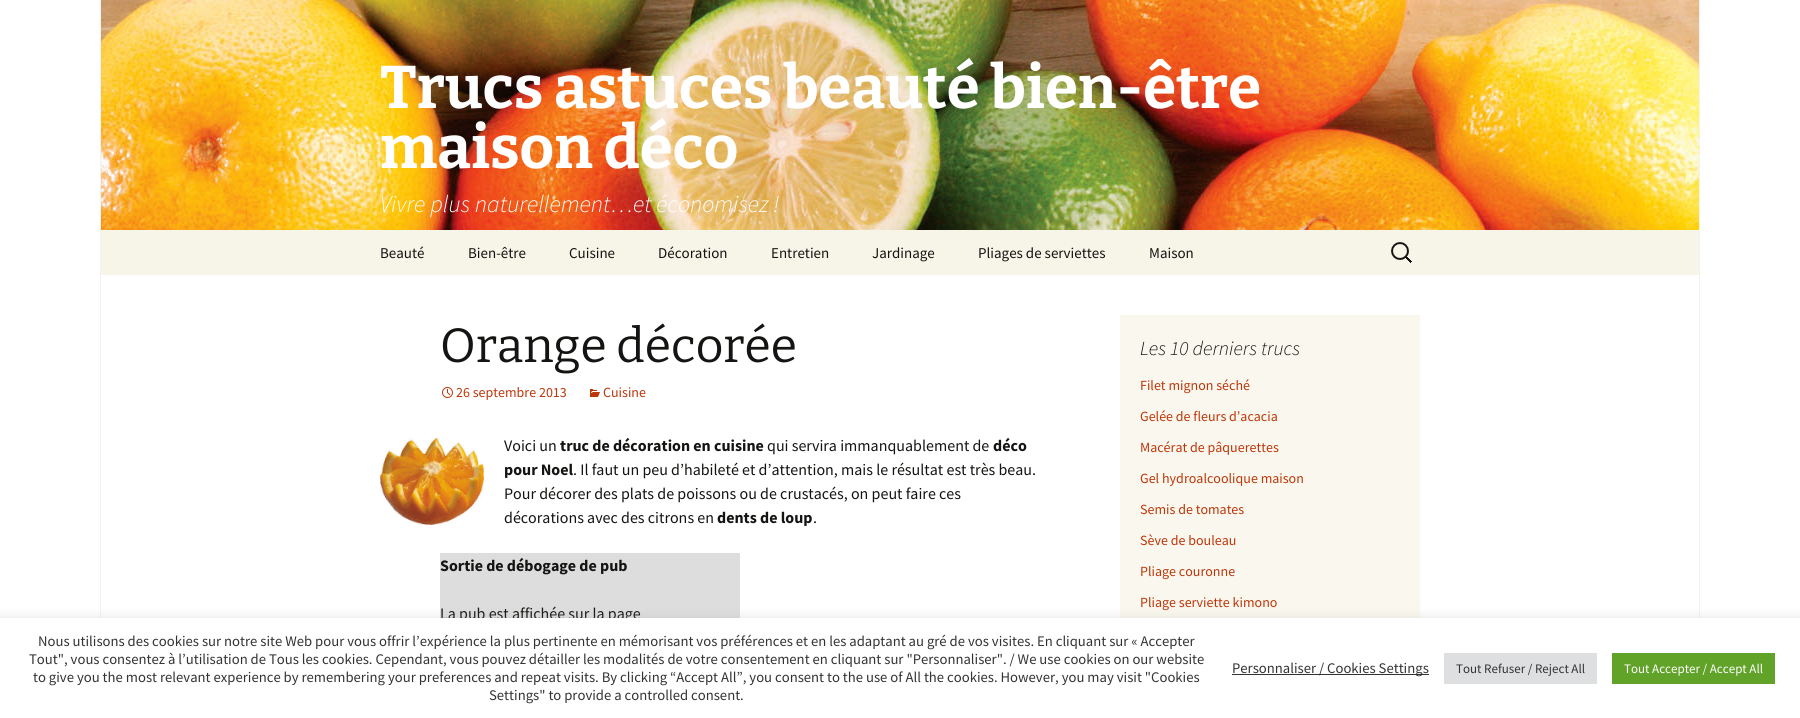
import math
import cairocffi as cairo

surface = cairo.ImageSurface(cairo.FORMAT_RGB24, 1800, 718)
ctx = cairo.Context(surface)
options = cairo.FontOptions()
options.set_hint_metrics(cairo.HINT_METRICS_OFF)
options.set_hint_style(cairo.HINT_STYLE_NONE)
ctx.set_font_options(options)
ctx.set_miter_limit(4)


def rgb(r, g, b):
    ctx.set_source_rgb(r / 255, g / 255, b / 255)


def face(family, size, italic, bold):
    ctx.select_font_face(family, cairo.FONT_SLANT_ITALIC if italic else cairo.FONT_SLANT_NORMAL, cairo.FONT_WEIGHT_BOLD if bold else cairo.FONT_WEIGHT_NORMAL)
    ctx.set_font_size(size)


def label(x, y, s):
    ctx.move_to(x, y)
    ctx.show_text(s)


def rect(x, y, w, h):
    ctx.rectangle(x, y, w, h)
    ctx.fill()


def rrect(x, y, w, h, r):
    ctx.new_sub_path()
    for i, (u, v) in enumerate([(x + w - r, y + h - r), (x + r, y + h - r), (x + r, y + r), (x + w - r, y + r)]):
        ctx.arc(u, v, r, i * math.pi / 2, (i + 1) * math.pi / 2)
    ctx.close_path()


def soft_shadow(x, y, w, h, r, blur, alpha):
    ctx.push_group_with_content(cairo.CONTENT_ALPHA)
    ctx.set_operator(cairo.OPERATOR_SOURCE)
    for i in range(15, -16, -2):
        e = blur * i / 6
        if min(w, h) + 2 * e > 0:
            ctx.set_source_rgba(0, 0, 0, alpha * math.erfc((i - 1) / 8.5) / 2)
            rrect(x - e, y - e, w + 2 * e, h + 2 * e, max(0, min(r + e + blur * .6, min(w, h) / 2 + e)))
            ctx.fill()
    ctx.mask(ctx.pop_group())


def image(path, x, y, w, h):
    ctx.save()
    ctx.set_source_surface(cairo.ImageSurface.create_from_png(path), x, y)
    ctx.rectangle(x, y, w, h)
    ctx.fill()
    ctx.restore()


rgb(255, 255, 255)
ctx.paint()
rgb(242, 242, 242)
rect(1699, 0, 1, 618)
rect(100, 0, 1, 618)
image('image0.png', 101, 0, 1598, 230)
face('Bitter Thin', 60, 0, 0)
rgb(255, 255, 255)
label(380, 108, 'Trucs astuces beauté bien-être')
label(380, 168, 'maison déco')
face('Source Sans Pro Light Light', 24, 1, 0)
label(380, 212, 'Vivre plus naturellement…et économisez !')
rgb(247, 245, 231)
rect(101, 230, 1598, 45)
face('Source Sans Pro', 15, 0, 0)
rgb(20, 20, 18)
label(380, 258, 'Beauté')
label(468, 258, 'Bien-être')
label(569, 258, 'Cuisine')
label(658, 258, 'Décoration')
label(771, 258, 'Entretien')
label(872, 258, 'Jardinage')
label(978, 258, 'Pliages de serviettes')
label(1149, 258, 'Maison')
image('image1.png', 1391, 242, 21, 21)
face('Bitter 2 Thin', 48, 0, 0)
label(440, 362, 'Orange décorée')
image('image2.png', 442, 387, 11, 11)
face('Source Sans Pro', 14, 0, 0)
rgb(188, 54, 10)
label(456, 397, '26 septembre 2013')
image('image3.png', 590, 389, 10, 8)
label(603, 397, 'Cuisine')
image('image4.png', 380, 438, 104, 87)
face('Source Sans Pro', 16, 0, 0)
rgb(20, 20, 18)
label(504, 451, 'Voici un')
face('Source Sans Pro', 16, 0, 1)
label(560, 451, 'truc de décoration en cuisine')
face('Source Sans Pro', 16, 0, 0)
label(767, 451, 'qui servira immanquablement de')
face('Source Sans Pro', 16, 0, 1)
label(993, 451, 'déco')
label(504, 475, 'pour Noel')
face('Source Sans Pro', 16, 0, 0)
label(573, 475, '. Il faut un peu d’habileté et d’attention, mais le résultat est très beau.')
label(504, 499, 'Pour décorer des plats de poissons ou de crustacés, on peut faire ces')
label(504, 523, 'décorations avec des citrons en')
face('Source Sans Pro', 16, 0, 1)
label(717, 523, 'dents de loup')
face('Source Sans Pro', 16, 0, 0)
label(813, 523, '.')
rgb(221, 221, 221)
rect(440, 553, 300, 65)
face('Source Sans Pro', 16, 0, 1)
rgb(20, 20, 18)
label(440, 571, 'Sortie de débogage de pub')
face('Source Sans Pro', 16, 0, 0)
label(440, 619, 'La pub est affichée sur la page')
rgb(250, 248, 238)
rect(1120, 315, 300, 303)
face('Source Sans Pro Light Light', 20, 1, 0)
rgb(20, 20, 18)
label(1140, 355, 'Les 10 derniers trucs')
face('Source Sans Pro', 14, 0, 0)
rgb(188, 54, 10)
label(1140, 390, 'Filet mignon séché')
label(1140, 421, 'Gelée de fleurs d’acacia')
label(1140, 452, 'Macérat de pâquerettes')
label(1140, 483, 'Gel hydroalcoolique maison')
label(1140, 514, 'Semis de tomates')
label(1140, 545, 'Sève de bouleau')
label(1140, 576, 'Pliage couronne')
label(1140, 607, 'Pliage serviette kimono')
rgb(172, 171, 171)
soft_shadow(0, 617, 1800, 100, 0, 5, 0.3)
rgb(255, 255, 255)
rect(0, 618, 1800, 100)
face('Source Sans Pro', 14.67, 0, 0)
rgb(51, 51, 51)
label(38, 646, 'Nous utilisons des cookies sur notre site Web pour vous offrir l’expérience la plus pertinente en mémorisant vos préférences et en les adaptant au gré de vos visites. En cliquant sur « Accepter')
label(29, 664, 'Tout", vous consentez à l’utilisation de Tous les cookies. Cependant, vous pouvez détailler les modalités de votre consentement en cliquant sur "Personnaliser". / We use cookies on our website')
label(33, 682, 'to give you the most relevant experience by remembering your preferences and repeat visits. By clicking “Accept All”, you consent to the use of All the cookies. However, you may visit "Cookies')
label(489, 700, 'Settings" to provide a controlled consent.')
rect(1232, 674, 197, 1)
label(1232, 673, 'Personnaliser / Cookies Settings')
rgb(222, 223, 224)
rect(1444, 653, 153, 31)
face('Source Sans Pro', 13, 0, 0)
rgb(51, 51, 51)
label(1456, 673, 'Tout Refuser / Reject All')
rgb(97, 162, 41)
rect(1612, 653, 163, 31)
rgb(255, 255, 255)
label(1624, 673, 'Tout Accepter / Accept All')
surface.write_to_png('render.png')
